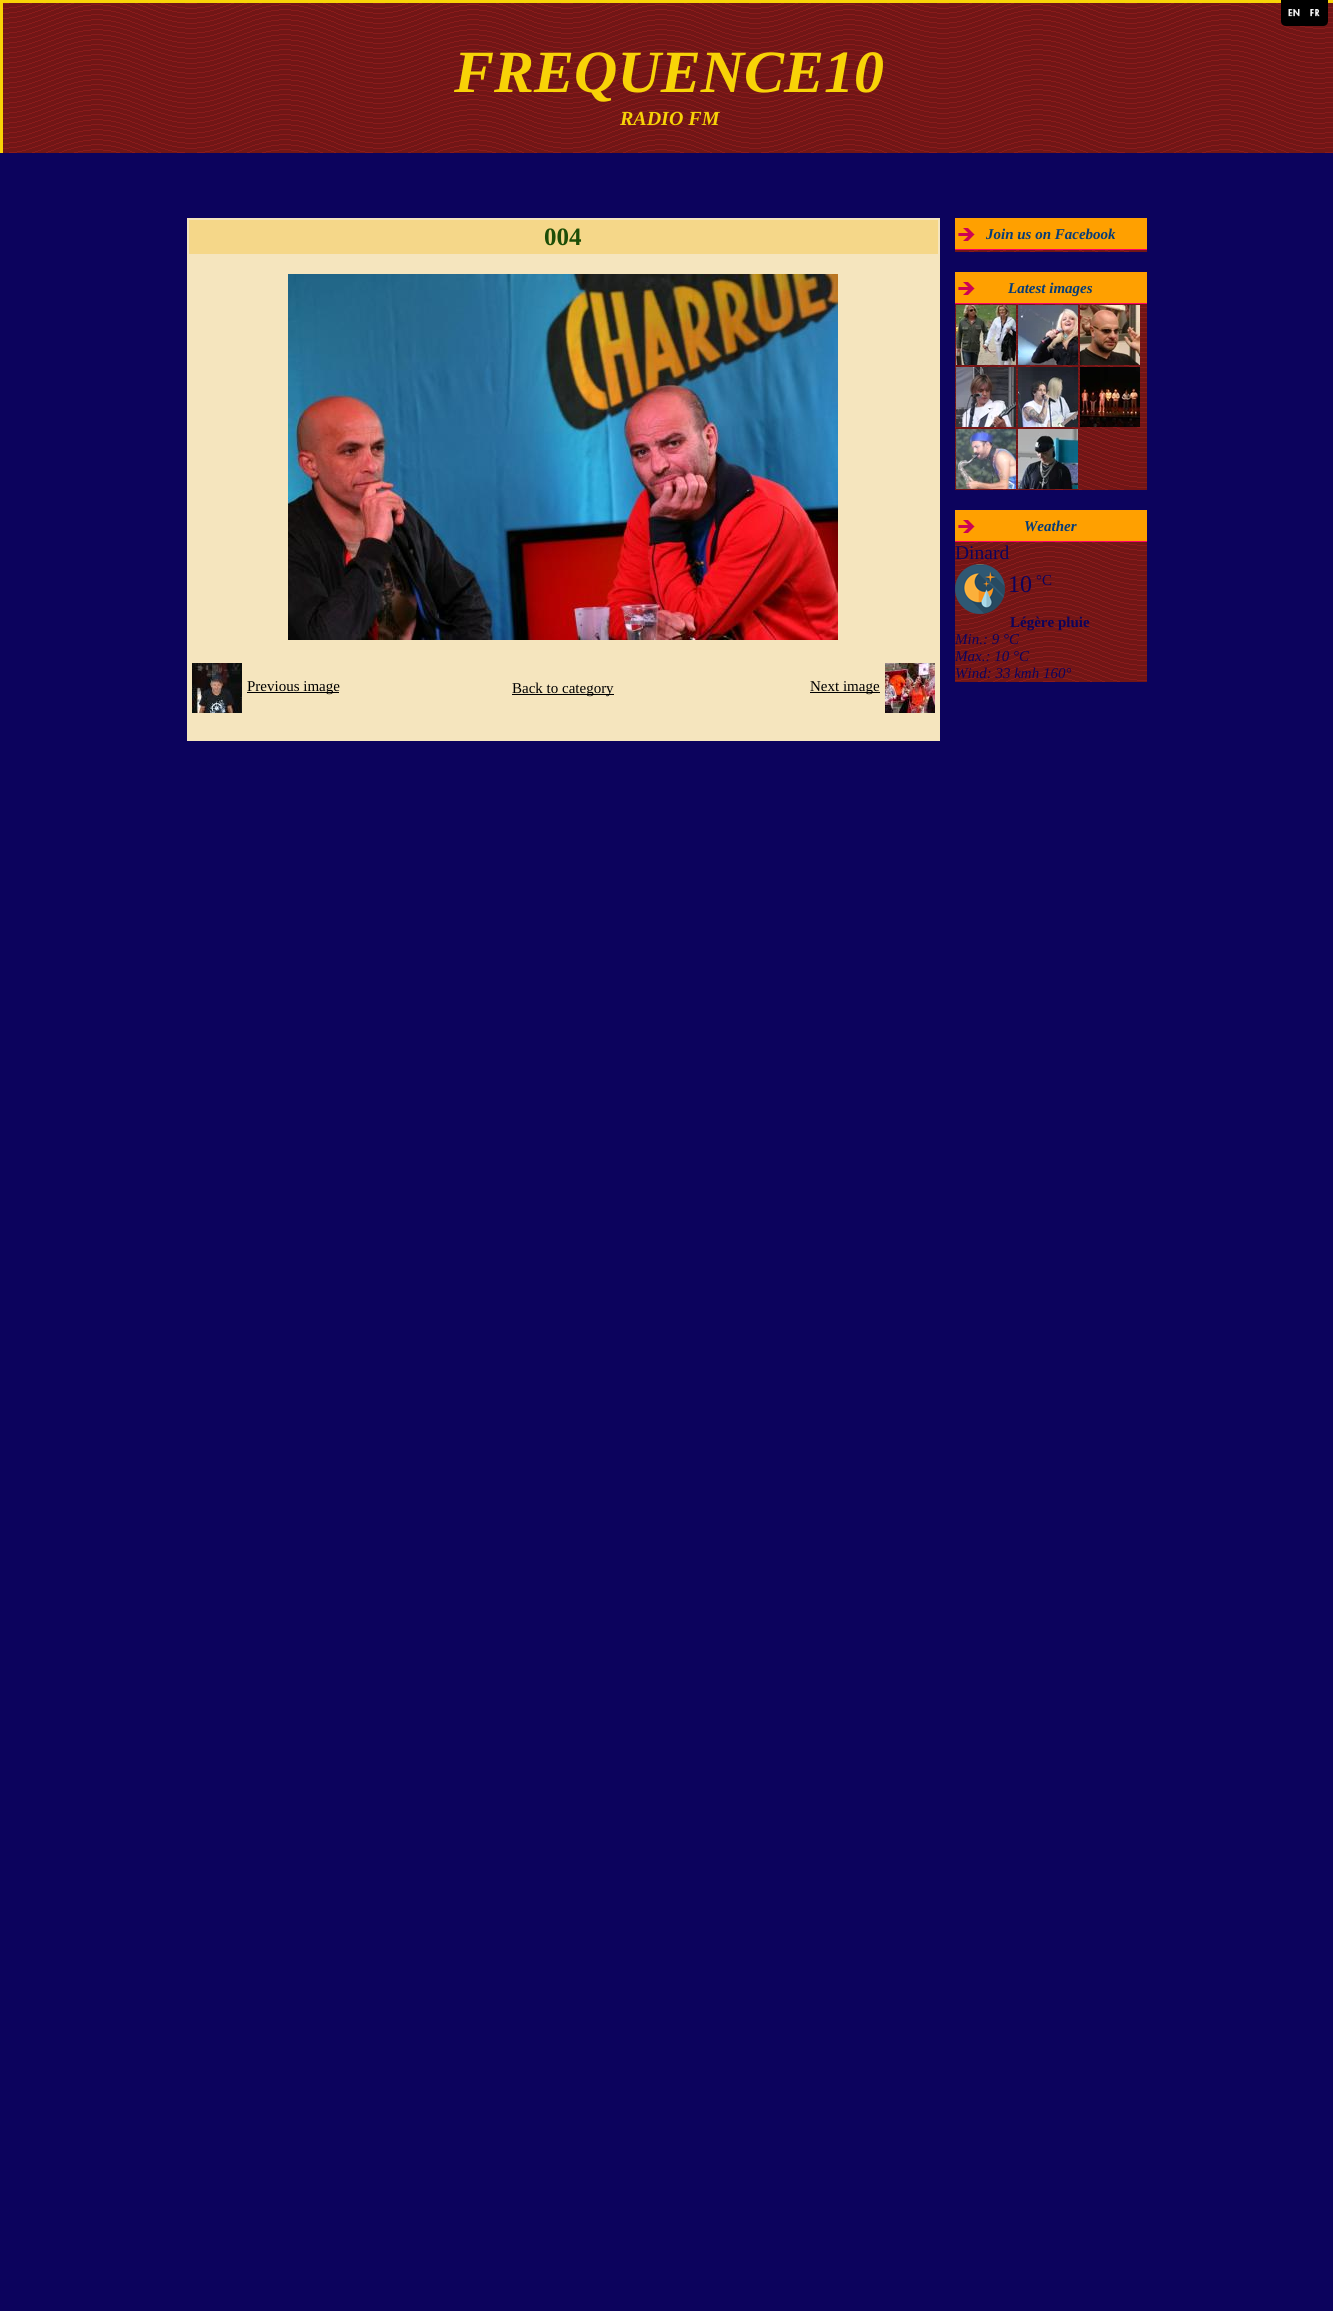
import math
import cairocffi as cairo

surface = cairo.ImageSurface(cairo.FORMAT_RGB24, 1333, 2311)
ctx = cairo.Context(surface)
options = cairo.FontOptions()
options.set_hint_metrics(cairo.HINT_METRICS_OFF)
options.set_hint_style(cairo.HINT_STYLE_NONE)
ctx.set_font_options(options)
ctx.set_miter_limit(4)


def rgb(r, g, b):
    ctx.set_source_rgb(r / 255, g / 255, b / 255)


def face(family, size, italic, bold):
    ctx.select_font_face(family, cairo.FONT_SLANT_ITALIC if italic else cairo.FONT_SLANT_NORMAL, cairo.FONT_WEIGHT_BOLD if bold else cairo.FONT_WEIGHT_NORMAL)
    ctx.set_font_size(size)


def label(x, y, s):
    ctx.move_to(x, y)
    ctx.show_text(s)


def rect(x, y, w, h):
    ctx.rectangle(x, y, w, h)
    ctx.fill()


def image(path, x, y, w, h):
    ctx.save()
    ctx.set_source_surface(cairo.ImageSurface.create_from_png(path), x, y)
    ctx.rectangle(x, y, w, h)
    ctx.fill()
    ctx.restore()


rgb(12, 3, 93)
ctx.paint()
image('image2.png', 3, 3, 1330, 150)
rgb(248, 211, 7)
rect(0, 0, 1333, 3)
rgb(0, 0, 0)
ctx.new_path()
ctx.move_to(1281, 0)
ctx.line_to(1328, 0)
ctx.line_to(1328, 21)
ctx.curve_to(1328, 24, 1326, 26, 1323, 26)
ctx.line_to(1286, 26)
ctx.curve_to(1283, 26, 1281, 24, 1281, 21)
ctx.close_path()
ctx.fill()
image('image0.png', 1288, 9, 12, 8)
image('image1.png', 1310, 9, 10, 8)
rgb(248, 211, 7)
rect(0, 0, 3, 153)
face('Liberation Serif', 60, 1, 1)
label(454, 92, 'FREQUENCE10')
face('Liberation Serif', 20, 1, 1)
label(620, 125, 'RADIO FM')
rgb(245, 229, 190)
rect(187, 218, 753, 523)
rgb(245, 215, 137)
rect(189, 220, 749, 34)
face('Liberation Serif', 25, 0, 1)
rgb(29, 78, 7)
label(544, 245, '004')
image('image3.png', 288, 274, 550, 366)
image('image4.png', 192, 663, 50, 50)
rgb(0, 0, 0)
rect(247, 692, 92, 1)
face('Liberation Serif', 15, 0, 0)
label(247, 691, 'Previous image')
rect(512, 694, 102, 1)
label(512, 693, 'Back to category')
rect(810, 692, 70, 1)
label(810, 691, 'Next image')
image('image5.png', 885, 663, 50, 50)
image('image6.png', 955, 250, 192, 2)
image('image7.png', 955, 218, 192, 32)
face('Liberation Serif', 15, 1, 1)
rgb(5, 60, 120)
label(986, 239, 'Join us on Facebook')
image('image8.png', 955, 304, 192, 186)
image('image7.png', 955, 272, 192, 32)
label(1008, 293, 'Latest images')
image('image9.png', 956, 305, 60, 60)
image('image10.png', 1018, 305, 60, 60)
image('image11.png', 1080, 305, 60, 60)
image('image12.png', 956, 367, 60, 60)
image('image13.png', 1018, 367, 60, 60)
image('image14.png', 1080, 367, 60, 60)
image('image15.png', 956, 429, 60, 60)
image('image16.png', 1018, 429, 60, 60)
image('image17.png', 955, 542, 192, 140)
image('image7.png', 955, 510, 192, 32)
label(1024, 531, 'Weather')
face('Liberation Serif', 19.5, 0, 0)
rgb(12, 3, 93)
label(955, 559, 'Dinard')
image('image18.png', 955, 564, 50, 50)
face('Liberation Serif', 24, 0, 0)
label(1008, 592, '10')
face('Liberation Serif', 15, 0, 0)
label(1036, 585, '°C')
face('Liberation Serif', 15, 0, 1)
label(1010, 627, 'Légère pluie')
face('Liberation Serif', 15, 1, 0)
label(955, 644, 'Min.: 9 °C')
label(955, 661, 'Max.: 10 °C')
label(955, 678, 'Wind: 33 kmh 160°')
surface.write_to_png('render.png')
